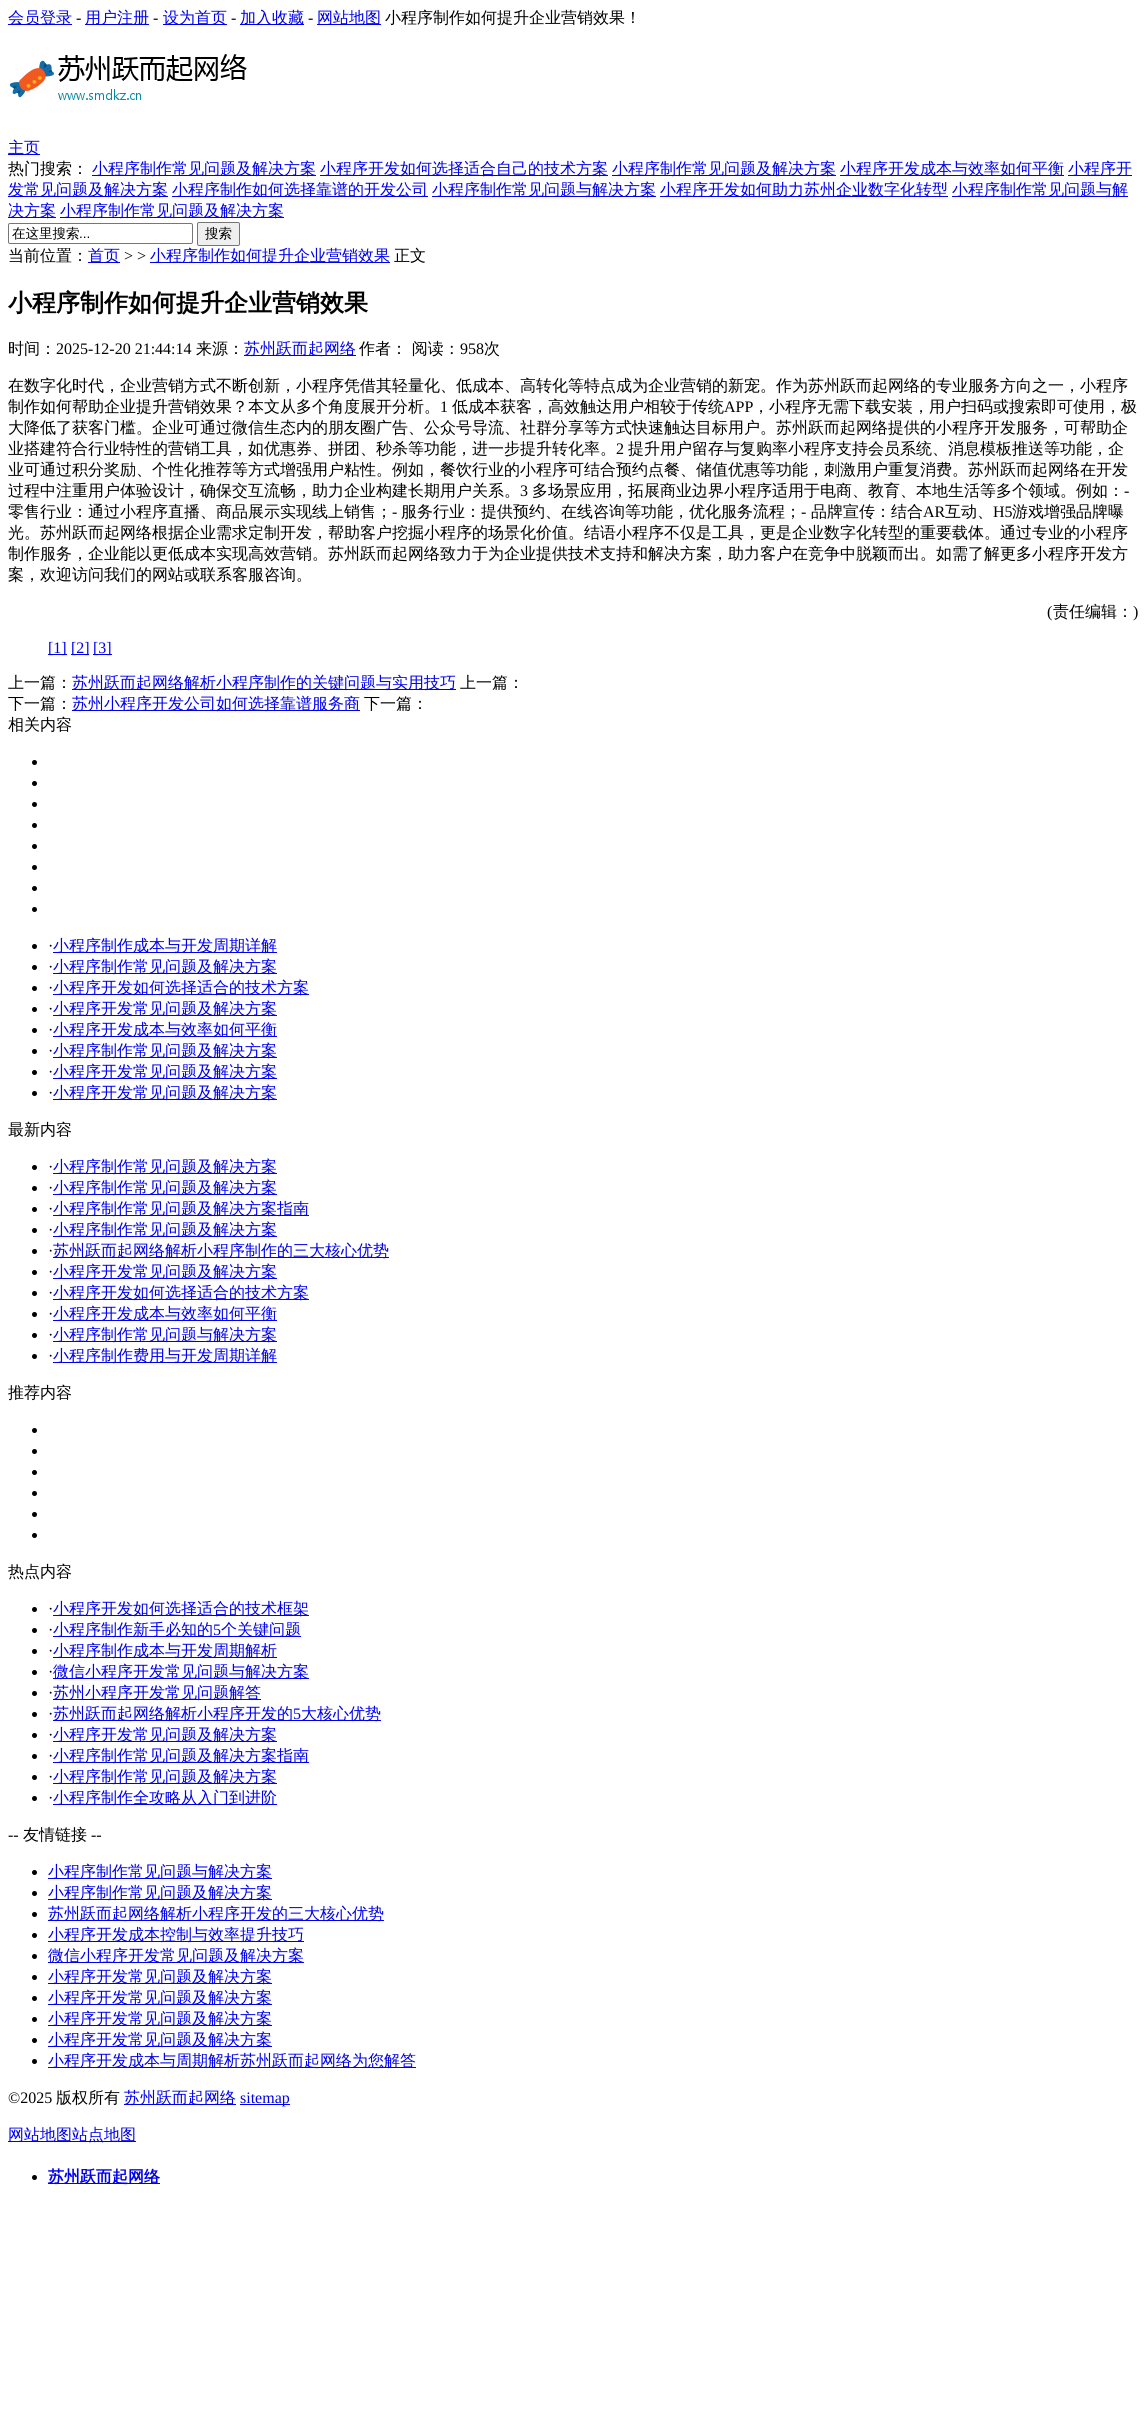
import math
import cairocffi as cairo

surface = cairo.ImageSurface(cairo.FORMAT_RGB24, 1146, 2430)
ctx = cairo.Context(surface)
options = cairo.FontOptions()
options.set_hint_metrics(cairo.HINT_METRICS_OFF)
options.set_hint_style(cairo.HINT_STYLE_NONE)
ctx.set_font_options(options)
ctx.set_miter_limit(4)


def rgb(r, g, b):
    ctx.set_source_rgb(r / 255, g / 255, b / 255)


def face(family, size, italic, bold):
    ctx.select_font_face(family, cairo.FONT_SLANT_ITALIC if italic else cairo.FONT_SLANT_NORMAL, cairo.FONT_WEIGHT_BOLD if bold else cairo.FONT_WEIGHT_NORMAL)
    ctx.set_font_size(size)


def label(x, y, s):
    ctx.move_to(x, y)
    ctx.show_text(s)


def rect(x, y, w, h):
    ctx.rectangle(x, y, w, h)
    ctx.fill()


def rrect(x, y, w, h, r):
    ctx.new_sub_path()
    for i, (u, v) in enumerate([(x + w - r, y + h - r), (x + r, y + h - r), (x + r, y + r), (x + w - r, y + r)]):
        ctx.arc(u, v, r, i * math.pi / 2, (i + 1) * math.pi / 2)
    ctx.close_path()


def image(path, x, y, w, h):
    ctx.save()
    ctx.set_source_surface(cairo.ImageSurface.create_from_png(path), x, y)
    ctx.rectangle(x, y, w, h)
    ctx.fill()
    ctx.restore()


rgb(255, 255, 255)
ctx.paint()
rgb(0, 0, 238)
rect(8, 24, 64, 1)
face('WenQuanYi Zen Hei Medium', 16, 0, 0)
label(8, 23, '会员登录')
face('Liberation Serif', 16, 0, 0)
rgb(0, 0, 0)
label(76, 23, '-')
rgb(0, 0, 238)
rect(85, 24, 64, 1)
face('WenQuanYi Zen Hei Medium', 16, 0, 0)
label(85, 23, '用户注册')
face('Liberation Serif', 16, 0, 0)
rgb(0, 0, 0)
label(153, 23, '-')
rgb(0, 0, 238)
rect(163, 24, 64, 1)
face('WenQuanYi Zen Hei Medium', 16, 0, 0)
label(163, 23, '设为首页')
face('Liberation Serif', 16, 0, 0)
rgb(0, 0, 0)
label(231, 23, '-')
rgb(0, 0, 238)
rect(240, 24, 64, 1)
face('WenQuanYi Zen Hei Medium', 16, 0, 0)
label(240, 23, '加入收藏')
face('Liberation Serif', 16, 0, 0)
rgb(0, 0, 0)
label(308, 23, '-')
rgb(0, 0, 238)
rect(317, 24, 64, 1)
face('WenQuanYi Zen Hei Medium', 16, 0, 0)
label(317, 23, '网站地图')
rgb(0, 0, 0)
label(385, 23, '小程序制作如何提升企业营销效果！')
image('image0.png', 10, 54, 237, 46)
rgb(0, 0, 238)
rect(8, 154, 32, 1)
label(8, 153, '主页')
rgb(0, 0, 0)
label(8, 174, '热门搜索：')
rgb(0, 0, 238)
rect(92, 175, 224, 1)
label(92, 174, '小程序制作常见问题及解决方案')
rect(320, 175, 288, 1)
label(320, 174, '小程序开发如何选择适合自己的技术方案')
rect(612, 175, 224, 1)
label(612, 174, '小程序制作常见问题及解决方案')
rect(840, 175, 224, 1)
label(840, 174, '小程序开发成本与效率如何平衡')
rect(1068, 175, 64, 1)
label(1068, 174, '小程序开')
rect(8, 196, 160, 1)
label(8, 195, '发常见问题及解决方案')
rect(172, 196, 256, 1)
label(172, 195, '小程序制作如何选择靠谱的开发公司')
rect(432, 196, 224, 1)
label(432, 195, '小程序制作常见问题与解决方案')
rect(660, 196, 288, 1)
label(660, 195, '小程序开发如何助力苏州企业数字化转型')
rect(952, 196, 176, 1)
label(952, 195, '小程序制作常见问题与解')
rect(8, 217, 48, 1)
label(8, 216, '决方案')
rect(60, 217, 224, 1)
label(60, 216, '小程序制作常见问题及解决方案')
rrect(8.5, 223.5, 184, 20, 1.5)
rgb(118, 118, 118)
ctx.set_line_width(1)
ctx.stroke()
face('WenQuanYi Zen Hei Medium', 13.5, 0, 0)
rgb(0, 0, 0)
label(12, 238, '在这里搜索')
face('Liberation Sans', 13.5, 0, 0)
label(79, 238, '...')
rgb(239, 239, 239)
rrect(197.5, 222.5, 42, 23, 1.5)
ctx.fill_preserve()
rgb(118, 118, 118)
ctx.stroke()
face('WenQuanYi Zen Hei Medium', 13.5, 0, 0)
rgb(0, 0, 0)
label(205, 238, '搜索')
face('WenQuanYi Zen Hei Medium', 16, 0, 0)
label(8, 261, '当前位置：')
rgb(0, 0, 238)
rect(88, 262, 32, 1)
label(88, 261, '首页')
face('Liberation Serif', 16, 0, 0)
rgb(0, 0, 0)
label(124, 261, '> >')
rgb(0, 0, 238)
rect(150, 262, 240, 1)
face('WenQuanYi Zen Hei Medium', 16, 0, 0)
label(150, 261, '小程序制作如何提升企业营销效果')
rgb(0, 0, 0)
label(394, 261, '正文')
face('WenQuanYi Zen Hei', 24, 0, 1)
label(8, 311, '小程序制作如何提升企业营销效果')
face('WenQuanYi Zen Hei Medium', 16, 0, 0)
label(8, 354, '时间：')
face('Liberation Serif', 16, 0, 0)
label(56, 354, '2025-12-20 21:44:14')
face('WenQuanYi Zen Hei Medium', 16, 0, 0)
label(196, 354, '来源：')
rgb(0, 0, 238)
rect(244, 355, 112, 1)
label(244, 354, '苏州跃而起网络')
rgb(0, 0, 0)
label(359, 354, '作者： 阅读：')
face('Liberation Serif', 16, 0, 0)
label(460, 354, '958')
face('WenQuanYi Zen Hei Medium', 16, 0, 0)
label(484, 354, '次')
label(8, 391, '在数字化时代，企业营销方式不断创新，小程序凭借其轻量化、低成本、高转化等特点成为企业营销的新宠。作为苏州跃而起网络的专业服务方向之一，小程序')
label(8, 412, '制作如何帮助企业提升营销效果？本文从多个角度展开分析。')
face('Liberation Serif', 16, 0, 0)
label(440, 412, '1')
face('WenQuanYi Zen Hei Medium', 16, 0, 0)
label(452, 412, '低成本获客，高效触达用户相较于传统')
face('Liberation Serif', 16, 0, 0)
label(724, 412, 'APP')
face('WenQuanYi Zen Hei Medium', 16, 0, 0)
label(753, 412, '，小程序无需下载安装，用户扫码或搜索即可使用，极')
label(8, 433, '大降低了获客门槛。企业可通过微信生态内的朋友圈广告、公众号导流、社群分享等方式快速触达目标用户。苏州跃而起网络提供的小程序开发服务，可帮助企')
label(8, 454, '业搭建符合行业特性的营销工具，如优惠券、拼团、秒杀等功能，进一步提升转化率。')
face('Liberation Serif', 16, 0, 0)
label(616, 454, '2')
face('WenQuanYi Zen Hei Medium', 16, 0, 0)
label(628, 454, '提升用户留存与复购率小程序支持会员系统、消息模板推送等功能，企')
label(8, 475, '业可通过积分奖励、个性化推荐等方式增强用户粘性。例如，餐饮行业的小程序可结合预约点餐、储值优惠等功能，刺激用户重复消费。苏州跃而起网络在开发')
label(8, 496, '过程中注重用户体验设计，确保交互流畅，助力企业构建长期用户关系。')
face('Liberation Serif', 16, 0, 0)
label(520, 496, '3')
face('WenQuanYi Zen Hei Medium', 16, 0, 0)
label(532, 496, '多场景应用，拓展商业边界小程序适用于电商、教育、本地生活等多个领域。例如：')
face('Liberation Serif', 16, 0, 0)
label(1124, 496, '-')
face('WenQuanYi Zen Hei Medium', 16, 0, 0)
label(8, 517, '零售行业：通过小程序直播、商品展示实现线上销售；')
face('Liberation Serif', 16, 0, 0)
label(392, 517, '-')
face('WenQuanYi Zen Hei Medium', 16, 0, 0)
label(401, 517, '服务行业：提供预约、在线咨询等功能，优化服务流程；')
face('Liberation Serif', 16, 0, 0)
label(801, 517, '-')
face('WenQuanYi Zen Hei Medium', 16, 0, 0)
label(811, 517, '品牌宣传：结合')
face('Liberation Serif', 16, 0, 0)
label(923, 517, 'AR')
face('WenQuanYi Zen Hei Medium', 16, 0, 0)
label(945, 517, '互动、')
face('Liberation Serif', 16, 0, 0)
label(993, 517, 'H5')
face('WenQuanYi Zen Hei Medium', 16, 0, 0)
label(1012, 517, '游戏增强品牌曝')
label(8, 538, '光。苏州跃而起网络根据企业需求定制开发，帮助客户挖掘小程序的场景化价值。结语小程序不仅是工具，更是企业数字化转型的重要载体。通过专业的小程序')
label(8, 559, '制作服务，企业能以更低成本实现高效营销。苏州跃而起网络致力于为企业提供技术支持和解决方案，助力客户在竞争中脱颖而出。如需了解更多小程序开发方')
label(8, 580, '案，欢迎访问我们的网站或联系客服咨询。')
face('Liberation Serif', 16, 0, 0)
label(1047, 617, '(')
face('WenQuanYi Zen Hei Medium', 16, 0, 0)
label(1053, 617, '责任编辑：')
face('Liberation Serif', 16, 0, 0)
label(1133, 617, ')')
rgb(0, 0, 238)
rect(48, 654, 19, 1)
label(48, 653, '[1]')
rect(71, 654, 18, 1)
label(71, 653, '[2]')
rect(93, 654, 19, 1)
label(93, 653, '[3]')
face('WenQuanYi Zen Hei Medium', 16, 0, 0)
rgb(0, 0, 0)
label(8, 688, '上一篇：')
rgb(0, 0, 238)
rect(72, 689, 384, 1)
label(72, 688, '苏州跃而起网络解析小程序制作的关键问题与实用技巧')
rgb(0, 0, 0)
label(460, 688, '上一篇：')
label(8, 709, '下一篇：')
rgb(0, 0, 238)
rect(72, 710, 288, 1)
label(72, 709, '苏州小程序开发公司如何选择靠谱服务商')
rgb(0, 0, 0)
label(364, 709, '下一篇：')
label(8, 730, '相关内容')
ctx.new_path()
ctx.arc(34.5, 762.5, 2.5, 0, 2 * math.pi)
ctx.fill()
ctx.arc(34.5, 783.5, 2.5, 0, 2 * math.pi)
ctx.fill()
ctx.arc(34.5, 804.5, 2.5, 0, 2 * math.pi)
ctx.fill()
ctx.arc(34.5, 825.5, 2.5, 0, 2 * math.pi)
ctx.fill()
ctx.arc(34.5, 846.5, 2.5, 0, 2 * math.pi)
ctx.fill()
ctx.arc(34.5, 867.5, 2.5, 0, 2 * math.pi)
ctx.fill()
ctx.arc(34.5, 888.5, 2.5, 0, 2 * math.pi)
ctx.fill()
ctx.arc(34.5, 909.5, 2.5, 0, 2 * math.pi)
ctx.fill()
ctx.arc(34.5, 946.5, 2.5, 0, 2 * math.pi)
ctx.fill()
face('Liberation Serif', 16, 0, 0)
label(48, 951, '·')
rgb(0, 0, 238)
rect(53, 952, 224, 1)
face('WenQuanYi Zen Hei Medium', 16, 0, 0)
label(53, 951, '小程序制作成本与开发周期详解')
rgb(0, 0, 0)
ctx.new_path()
ctx.arc(34.5, 967.5, 2.5, 0, 2 * math.pi)
ctx.fill()
face('Liberation Serif', 16, 0, 0)
label(48, 972, '·')
rgb(0, 0, 238)
rect(53, 973, 224, 1)
face('WenQuanYi Zen Hei Medium', 16, 0, 0)
label(53, 972, '小程序制作常见问题及解决方案')
rgb(0, 0, 0)
ctx.new_path()
ctx.arc(34.5, 988.5, 2.5, 0, 2 * math.pi)
ctx.fill()
face('Liberation Serif', 16, 0, 0)
label(48, 993, '·')
rgb(0, 0, 238)
rect(53, 994, 256, 1)
face('WenQuanYi Zen Hei Medium', 16, 0, 0)
label(53, 993, '小程序开发如何选择适合的技术方案')
rgb(0, 0, 0)
ctx.new_path()
ctx.arc(34.5, 1009.5, 2.5, 0, 2 * math.pi)
ctx.fill()
face('Liberation Serif', 16, 0, 0)
label(48, 1014, '·')
rgb(0, 0, 238)
rect(53, 1015, 224, 1)
face('WenQuanYi Zen Hei Medium', 16, 0, 0)
label(53, 1014, '小程序开发常见问题及解决方案')
rgb(0, 0, 0)
ctx.new_path()
ctx.arc(34.5, 1030.5, 2.5, 0, 2 * math.pi)
ctx.fill()
face('Liberation Serif', 16, 0, 0)
label(48, 1035, '·')
rgb(0, 0, 238)
rect(53, 1036, 224, 1)
face('WenQuanYi Zen Hei Medium', 16, 0, 0)
label(53, 1035, '小程序开发成本与效率如何平衡')
rgb(0, 0, 0)
ctx.new_path()
ctx.arc(34.5, 1051.5, 2.5, 0, 2 * math.pi)
ctx.fill()
face('Liberation Serif', 16, 0, 0)
label(48, 1056, '·')
rgb(0, 0, 238)
rect(53, 1057, 224, 1)
face('WenQuanYi Zen Hei Medium', 16, 0, 0)
label(53, 1056, '小程序制作常见问题及解决方案')
rgb(0, 0, 0)
ctx.new_path()
ctx.arc(34.5, 1072.5, 2.5, 0, 2 * math.pi)
ctx.fill()
face('Liberation Serif', 16, 0, 0)
label(48, 1077, '·')
rgb(0, 0, 238)
rect(53, 1078, 224, 1)
face('WenQuanYi Zen Hei Medium', 16, 0, 0)
label(53, 1077, '小程序开发常见问题及解决方案')
rgb(0, 0, 0)
ctx.new_path()
ctx.arc(34.5, 1093.5, 2.5, 0, 2 * math.pi)
ctx.fill()
face('Liberation Serif', 16, 0, 0)
label(48, 1098, '·')
rgb(0, 0, 238)
rect(53, 1099, 224, 1)
face('WenQuanYi Zen Hei Medium', 16, 0, 0)
label(53, 1098, '小程序开发常见问题及解决方案')
rgb(0, 0, 0)
label(8, 1135, '最新内容')
ctx.new_path()
ctx.arc(34.5, 1167.5, 2.5, 0, 2 * math.pi)
ctx.fill()
face('Liberation Serif', 16, 0, 0)
label(48, 1172, '·')
rgb(0, 0, 238)
rect(53, 1173, 224, 1)
face('WenQuanYi Zen Hei Medium', 16, 0, 0)
label(53, 1172, '小程序制作常见问题及解决方案')
rgb(0, 0, 0)
ctx.new_path()
ctx.arc(34.5, 1188.5, 2.5, 0, 2 * math.pi)
ctx.fill()
face('Liberation Serif', 16, 0, 0)
label(48, 1193, '·')
rgb(0, 0, 238)
rect(53, 1194, 224, 1)
face('WenQuanYi Zen Hei Medium', 16, 0, 0)
label(53, 1193, '小程序制作常见问题及解决方案')
rgb(0, 0, 0)
ctx.new_path()
ctx.arc(34.5, 1209.5, 2.5, 0, 2 * math.pi)
ctx.fill()
face('Liberation Serif', 16, 0, 0)
label(48, 1214, '·')
rgb(0, 0, 238)
rect(53, 1215, 256, 1)
face('WenQuanYi Zen Hei Medium', 16, 0, 0)
label(53, 1214, '小程序制作常见问题及解决方案指南')
rgb(0, 0, 0)
ctx.new_path()
ctx.arc(34.5, 1230.5, 2.5, 0, 2 * math.pi)
ctx.fill()
face('Liberation Serif', 16, 0, 0)
label(48, 1235, '·')
rgb(0, 0, 238)
rect(53, 1236, 224, 1)
face('WenQuanYi Zen Hei Medium', 16, 0, 0)
label(53, 1235, '小程序制作常见问题及解决方案')
rgb(0, 0, 0)
ctx.new_path()
ctx.arc(34.5, 1251.5, 2.5, 0, 2 * math.pi)
ctx.fill()
face('Liberation Serif', 16, 0, 0)
label(48, 1256, '·')
rgb(0, 0, 238)
rect(53, 1257, 336, 1)
face('WenQuanYi Zen Hei Medium', 16, 0, 0)
label(53, 1256, '苏州跃而起网络解析小程序制作的三大核心优势')
rgb(0, 0, 0)
ctx.new_path()
ctx.arc(34.5, 1272.5, 2.5, 0, 2 * math.pi)
ctx.fill()
face('Liberation Serif', 16, 0, 0)
label(48, 1277, '·')
rgb(0, 0, 238)
rect(53, 1278, 224, 1)
face('WenQuanYi Zen Hei Medium', 16, 0, 0)
label(53, 1277, '小程序开发常见问题及解决方案')
rgb(0, 0, 0)
ctx.new_path()
ctx.arc(34.5, 1293.5, 2.5, 0, 2 * math.pi)
ctx.fill()
face('Liberation Serif', 16, 0, 0)
label(48, 1298, '·')
rgb(0, 0, 238)
rect(53, 1299, 256, 1)
face('WenQuanYi Zen Hei Medium', 16, 0, 0)
label(53, 1298, '小程序开发如何选择适合的技术方案')
rgb(0, 0, 0)
ctx.new_path()
ctx.arc(34.5, 1314.5, 2.5, 0, 2 * math.pi)
ctx.fill()
face('Liberation Serif', 16, 0, 0)
label(48, 1319, '·')
rgb(0, 0, 238)
rect(53, 1320, 224, 1)
face('WenQuanYi Zen Hei Medium', 16, 0, 0)
label(53, 1319, '小程序开发成本与效率如何平衡')
rgb(0, 0, 0)
ctx.new_path()
ctx.arc(34.5, 1335.5, 2.5, 0, 2 * math.pi)
ctx.fill()
face('Liberation Serif', 16, 0, 0)
label(48, 1340, '·')
rgb(0, 0, 238)
rect(53, 1341, 224, 1)
face('WenQuanYi Zen Hei Medium', 16, 0, 0)
label(53, 1340, '小程序制作常见问题与解决方案')
rgb(0, 0, 0)
ctx.new_path()
ctx.arc(34.5, 1356.5, 2.5, 0, 2 * math.pi)
ctx.fill()
face('Liberation Serif', 16, 0, 0)
label(48, 1361, '·')
rgb(0, 0, 238)
rect(53, 1362, 224, 1)
face('WenQuanYi Zen Hei Medium', 16, 0, 0)
label(53, 1361, '小程序制作费用与开发周期详解')
rgb(0, 0, 0)
label(8, 1398, '推荐内容')
ctx.new_path()
ctx.arc(34.5, 1430.5, 2.5, 0, 2 * math.pi)
ctx.fill()
ctx.arc(34.5, 1451.5, 2.5, 0, 2 * math.pi)
ctx.fill()
ctx.arc(34.5, 1472.5, 2.5, 0, 2 * math.pi)
ctx.fill()
ctx.arc(34.5, 1493.5, 2.5, 0, 2 * math.pi)
ctx.fill()
ctx.arc(34.5, 1514.5, 2.5, 0, 2 * math.pi)
ctx.fill()
ctx.arc(34.5, 1535.5, 2.5, 0, 2 * math.pi)
ctx.fill()
label(8, 1577, '热点内容')
ctx.new_path()
ctx.arc(34.5, 1609.5, 2.5, 0, 2 * math.pi)
ctx.fill()
face('Liberation Serif', 16, 0, 0)
label(48, 1614, '·')
rgb(0, 0, 238)
rect(53, 1615, 256, 1)
face('WenQuanYi Zen Hei Medium', 16, 0, 0)
label(53, 1614, '小程序开发如何选择适合的技术框架')
rgb(0, 0, 0)
ctx.new_path()
ctx.arc(34.5, 1630.5, 2.5, 0, 2 * math.pi)
ctx.fill()
face('Liberation Serif', 16, 0, 0)
label(48, 1635, '·')
rgb(0, 0, 238)
rect(53, 1636, 248, 1)
face('WenQuanYi Zen Hei Medium', 16, 0, 0)
label(53, 1635, '小程序制作新手必知的')
face('Liberation Serif', 16, 0, 0)
label(213, 1635, '5')
face('WenQuanYi Zen Hei Medium', 16, 0, 0)
label(221, 1635, '个关键问题')
rgb(0, 0, 0)
ctx.new_path()
ctx.arc(34.5, 1651.5, 2.5, 0, 2 * math.pi)
ctx.fill()
face('Liberation Serif', 16, 0, 0)
label(48, 1656, '·')
rgb(0, 0, 238)
rect(53, 1657, 224, 1)
face('WenQuanYi Zen Hei Medium', 16, 0, 0)
label(53, 1656, '小程序制作成本与开发周期解析')
rgb(0, 0, 0)
ctx.new_path()
ctx.arc(34.5, 1672.5, 2.5, 0, 2 * math.pi)
ctx.fill()
face('Liberation Serif', 16, 0, 0)
label(48, 1677, '·')
rgb(0, 0, 238)
rect(53, 1678, 256, 1)
face('WenQuanYi Zen Hei Medium', 16, 0, 0)
label(53, 1677, '微信小程序开发常见问题与解决方案')
rgb(0, 0, 0)
ctx.new_path()
ctx.arc(34.5, 1693.5, 2.5, 0, 2 * math.pi)
ctx.fill()
face('Liberation Serif', 16, 0, 0)
label(48, 1698, '·')
rgb(0, 0, 238)
rect(53, 1699, 208, 1)
face('WenQuanYi Zen Hei Medium', 16, 0, 0)
label(53, 1698, '苏州小程序开发常见问题解答')
rgb(0, 0, 0)
ctx.new_path()
ctx.arc(34.5, 1714.5, 2.5, 0, 2 * math.pi)
ctx.fill()
face('Liberation Serif', 16, 0, 0)
label(48, 1719, '·')
rgb(0, 0, 238)
rect(53, 1720, 328, 1)
face('WenQuanYi Zen Hei Medium', 16, 0, 0)
label(53, 1719, '苏州跃而起网络解析小程序开发的')
face('Liberation Serif', 16, 0, 0)
label(293, 1719, '5')
face('WenQuanYi Zen Hei Medium', 16, 0, 0)
label(301, 1719, '大核心优势')
rgb(0, 0, 0)
ctx.new_path()
ctx.arc(34.5, 1735.5, 2.5, 0, 2 * math.pi)
ctx.fill()
face('Liberation Serif', 16, 0, 0)
label(48, 1740, '·')
rgb(0, 0, 238)
rect(53, 1741, 224, 1)
face('WenQuanYi Zen Hei Medium', 16, 0, 0)
label(53, 1740, '小程序开发常见问题及解决方案')
rgb(0, 0, 0)
ctx.new_path()
ctx.arc(34.5, 1756.5, 2.5, 0, 2 * math.pi)
ctx.fill()
face('Liberation Serif', 16, 0, 0)
label(48, 1761, '·')
rgb(0, 0, 238)
rect(53, 1762, 256, 1)
face('WenQuanYi Zen Hei Medium', 16, 0, 0)
label(53, 1761, '小程序制作常见问题及解决方案指南')
rgb(0, 0, 0)
ctx.new_path()
ctx.arc(34.5, 1777.5, 2.5, 0, 2 * math.pi)
ctx.fill()
face('Liberation Serif', 16, 0, 0)
label(48, 1782, '·')
rgb(0, 0, 238)
rect(53, 1783, 224, 1)
face('WenQuanYi Zen Hei Medium', 16, 0, 0)
label(53, 1782, '小程序制作常见问题及解决方案')
rgb(0, 0, 0)
ctx.new_path()
ctx.arc(34.5, 1798.5, 2.5, 0, 2 * math.pi)
ctx.fill()
face('Liberation Serif', 16, 0, 0)
label(48, 1803, '·')
rgb(0, 0, 238)
rect(53, 1804, 224, 1)
face('WenQuanYi Zen Hei Medium', 16, 0, 0)
label(53, 1803, '小程序制作全攻略从入门到进阶')
face('Liberation Serif', 16, 0, 0)
rgb(0, 0, 0)
label(8, 1840, '--')
face('WenQuanYi Zen Hei Medium', 16, 0, 0)
label(23, 1840, '友情链接')
face('Liberation Serif', 16, 0, 0)
label(91, 1840, '--')
ctx.new_path()
ctx.arc(34.5, 1872.5, 2.5, 0, 2 * math.pi)
ctx.fill()
rgb(0, 0, 238)
rect(48, 1878, 224, 1)
face('WenQuanYi Zen Hei Medium', 16, 0, 0)
label(48, 1877, '小程序制作常见问题与解决方案')
rgb(0, 0, 0)
ctx.new_path()
ctx.arc(34.5, 1893.5, 2.5, 0, 2 * math.pi)
ctx.fill()
rgb(0, 0, 238)
rect(48, 1899, 224, 1)
label(48, 1898, '小程序制作常见问题及解决方案')
rgb(0, 0, 0)
ctx.new_path()
ctx.arc(34.5, 1914.5, 2.5, 0, 2 * math.pi)
ctx.fill()
rgb(0, 0, 238)
rect(48, 1920, 336, 1)
label(48, 1919, '苏州跃而起网络解析小程序开发的三大核心优势')
rgb(0, 0, 0)
ctx.new_path()
ctx.arc(34.5, 1935.5, 2.5, 0, 2 * math.pi)
ctx.fill()
rgb(0, 0, 238)
rect(48, 1941, 256, 1)
label(48, 1940, '小程序开发成本控制与效率提升技巧')
rgb(0, 0, 0)
ctx.new_path()
ctx.arc(34.5, 1956.5, 2.5, 0, 2 * math.pi)
ctx.fill()
rgb(0, 0, 238)
rect(48, 1962, 256, 1)
label(48, 1961, '微信小程序开发常见问题及解决方案')
rgb(0, 0, 0)
ctx.new_path()
ctx.arc(34.5, 1977.5, 2.5, 0, 2 * math.pi)
ctx.fill()
rgb(0, 0, 238)
rect(48, 1983, 224, 1)
label(48, 1982, '小程序开发常见问题及解决方案')
rgb(0, 0, 0)
ctx.new_path()
ctx.arc(34.5, 1998.5, 2.5, 0, 2 * math.pi)
ctx.fill()
rgb(0, 0, 238)
rect(48, 2004, 224, 1)
label(48, 2003, '小程序开发常见问题及解决方案')
rgb(0, 0, 0)
ctx.new_path()
ctx.arc(34.5, 2019.5, 2.5, 0, 2 * math.pi)
ctx.fill()
rgb(0, 0, 238)
rect(48, 2025, 224, 1)
label(48, 2024, '小程序开发常见问题及解决方案')
rgb(0, 0, 0)
ctx.new_path()
ctx.arc(34.5, 2040.5, 2.5, 0, 2 * math.pi)
ctx.fill()
rgb(0, 0, 238)
rect(48, 2046, 224, 1)
label(48, 2045, '小程序开发常见问题及解决方案')
rgb(0, 0, 0)
ctx.new_path()
ctx.arc(34.5, 2061.5, 2.5, 0, 2 * math.pi)
ctx.fill()
rgb(0, 0, 238)
rect(48, 2067, 368, 1)
label(48, 2066, '小程序开发成本与周期解析苏州跃而起网络为您解答')
face('Liberation Serif', 16, 0, 0)
rgb(0, 0, 0)
label(8, 2103, '©2025')
face('WenQuanYi Zen Hei Medium', 16, 0, 0)
label(56, 2103, '版权所有')
rgb(0, 0, 238)
rect(124, 2104, 112, 1)
label(124, 2103, '苏州跃而起网络')
rect(240, 2104, 50, 1)
face('Liberation Serif', 16, 0, 0)
label(240, 2103, 'sitemap')
rect(8, 2141, 128, 1)
face('WenQuanYi Zen Hei Medium', 16, 0, 0)
label(8, 2140, '网站地图站点地图')
rgb(0, 0, 0)
ctx.new_path()
ctx.arc(34.5, 2177.5, 2.5, 0, 2 * math.pi)
ctx.fill()
rgb(0, 0, 238)
rect(48, 2183, 112, 1)
face('WenQuanYi Zen Hei', 16, 0, 1)
label(48, 2182, '苏州跃而起网络')
surface.write_to_png('render.png')
